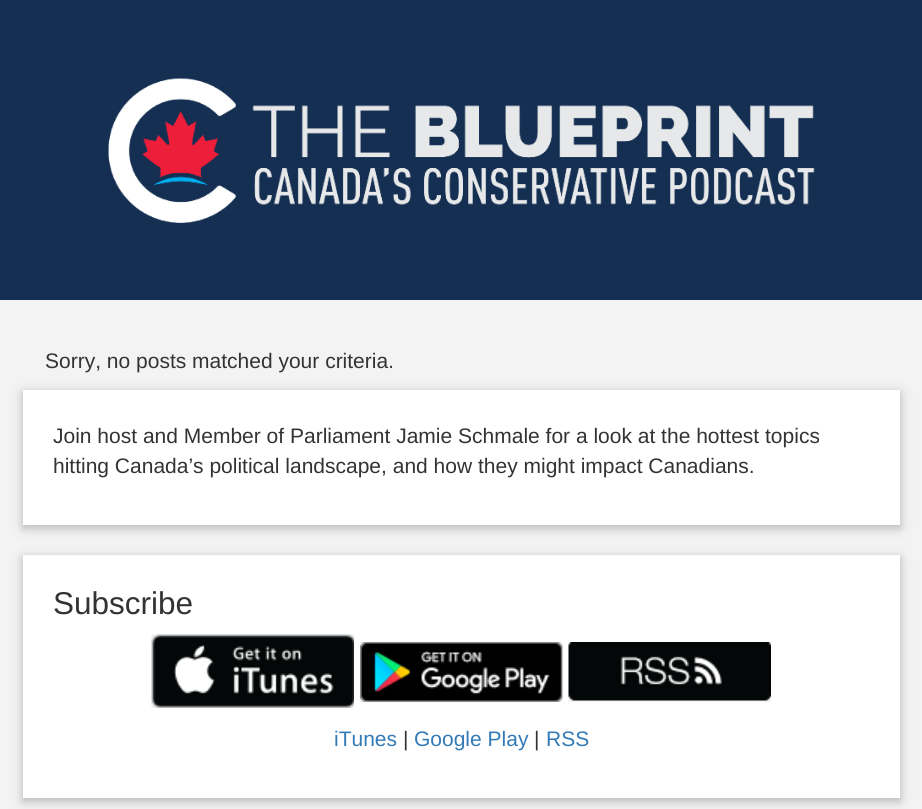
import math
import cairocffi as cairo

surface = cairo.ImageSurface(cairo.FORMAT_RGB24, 922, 809)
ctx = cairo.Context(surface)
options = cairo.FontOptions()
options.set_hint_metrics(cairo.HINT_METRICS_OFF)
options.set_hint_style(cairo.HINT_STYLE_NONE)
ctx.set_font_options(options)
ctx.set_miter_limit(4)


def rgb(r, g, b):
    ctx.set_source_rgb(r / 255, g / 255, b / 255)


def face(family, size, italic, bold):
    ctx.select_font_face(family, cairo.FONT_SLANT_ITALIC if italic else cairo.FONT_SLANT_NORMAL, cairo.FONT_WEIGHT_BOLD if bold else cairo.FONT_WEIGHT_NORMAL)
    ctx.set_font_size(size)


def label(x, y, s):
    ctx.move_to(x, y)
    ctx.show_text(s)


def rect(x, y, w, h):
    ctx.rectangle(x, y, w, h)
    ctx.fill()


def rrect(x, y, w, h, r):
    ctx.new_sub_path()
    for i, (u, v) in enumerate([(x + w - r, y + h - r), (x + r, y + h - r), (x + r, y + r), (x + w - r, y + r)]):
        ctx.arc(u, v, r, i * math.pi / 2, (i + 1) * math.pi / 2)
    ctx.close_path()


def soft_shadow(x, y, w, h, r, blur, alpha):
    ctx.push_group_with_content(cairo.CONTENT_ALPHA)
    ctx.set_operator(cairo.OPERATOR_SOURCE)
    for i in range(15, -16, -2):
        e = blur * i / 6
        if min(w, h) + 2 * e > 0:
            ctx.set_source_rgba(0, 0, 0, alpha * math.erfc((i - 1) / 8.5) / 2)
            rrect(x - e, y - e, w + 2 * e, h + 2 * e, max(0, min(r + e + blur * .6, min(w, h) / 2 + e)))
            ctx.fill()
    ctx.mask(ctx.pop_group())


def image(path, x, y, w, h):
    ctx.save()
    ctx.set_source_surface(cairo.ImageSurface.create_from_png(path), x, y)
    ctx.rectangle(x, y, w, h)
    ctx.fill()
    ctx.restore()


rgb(243, 243, 243)
ctx.paint()
rgb(20, 47, 82)
rect(0, 0, 922, 300)
image('image0.png', 108, 78, 707, 145)
face('Liberation Sans', 21, 0, 0)
rgb(51, 51, 51)
label(45, 368, 'Sorry, no posts matched your criteria.')
rgb(0, 0, 0)
soft_shadow(23, 393, 877, 135, 0, 7.5, 0.12)
soft_shadow(23, 393, 877, 135, 0, 4, 0.16)
rgb(255, 255, 255)
rect(23, 390, 877, 135)
rgb(51, 51, 51)
label(53, 443, 'Join host and Member of Parliament Jamie Schmale for a look at the hottest topics')
label(53, 473, 'hitting Canada’s political landscape, and how they might impact Canadians.')
rgb(0, 0, 0)
soft_shadow(23, 558, 877, 243, 0, 7.5, 0.12)
soft_shadow(23, 558, 877, 243, 0, 4, 0.16)
rgb(255, 255, 255)
rect(23, 555, 877, 243)
face('Liberation Sans', 31.5, 0, 0)
rgb(51, 51, 51)
label(53, 614, 'Subscribe')
image('image1.png', 151, 634, 203, 74)
image('image2.png', 360, 642, 203, 60)
image('image3.png', 568, 642, 203, 60)
face('Liberation Sans', 21, 0, 0)
rgb(51, 122, 183)
label(334, 746, 'iTunes')
rgb(51, 51, 51)
label(403, 746, '|')
rgb(51, 122, 183)
label(414, 746, 'Google Play')
rgb(51, 51, 51)
label(534, 746, '|')
rgb(51, 122, 183)
label(546, 746, 'RSS')
surface.write_to_png('render.png')
